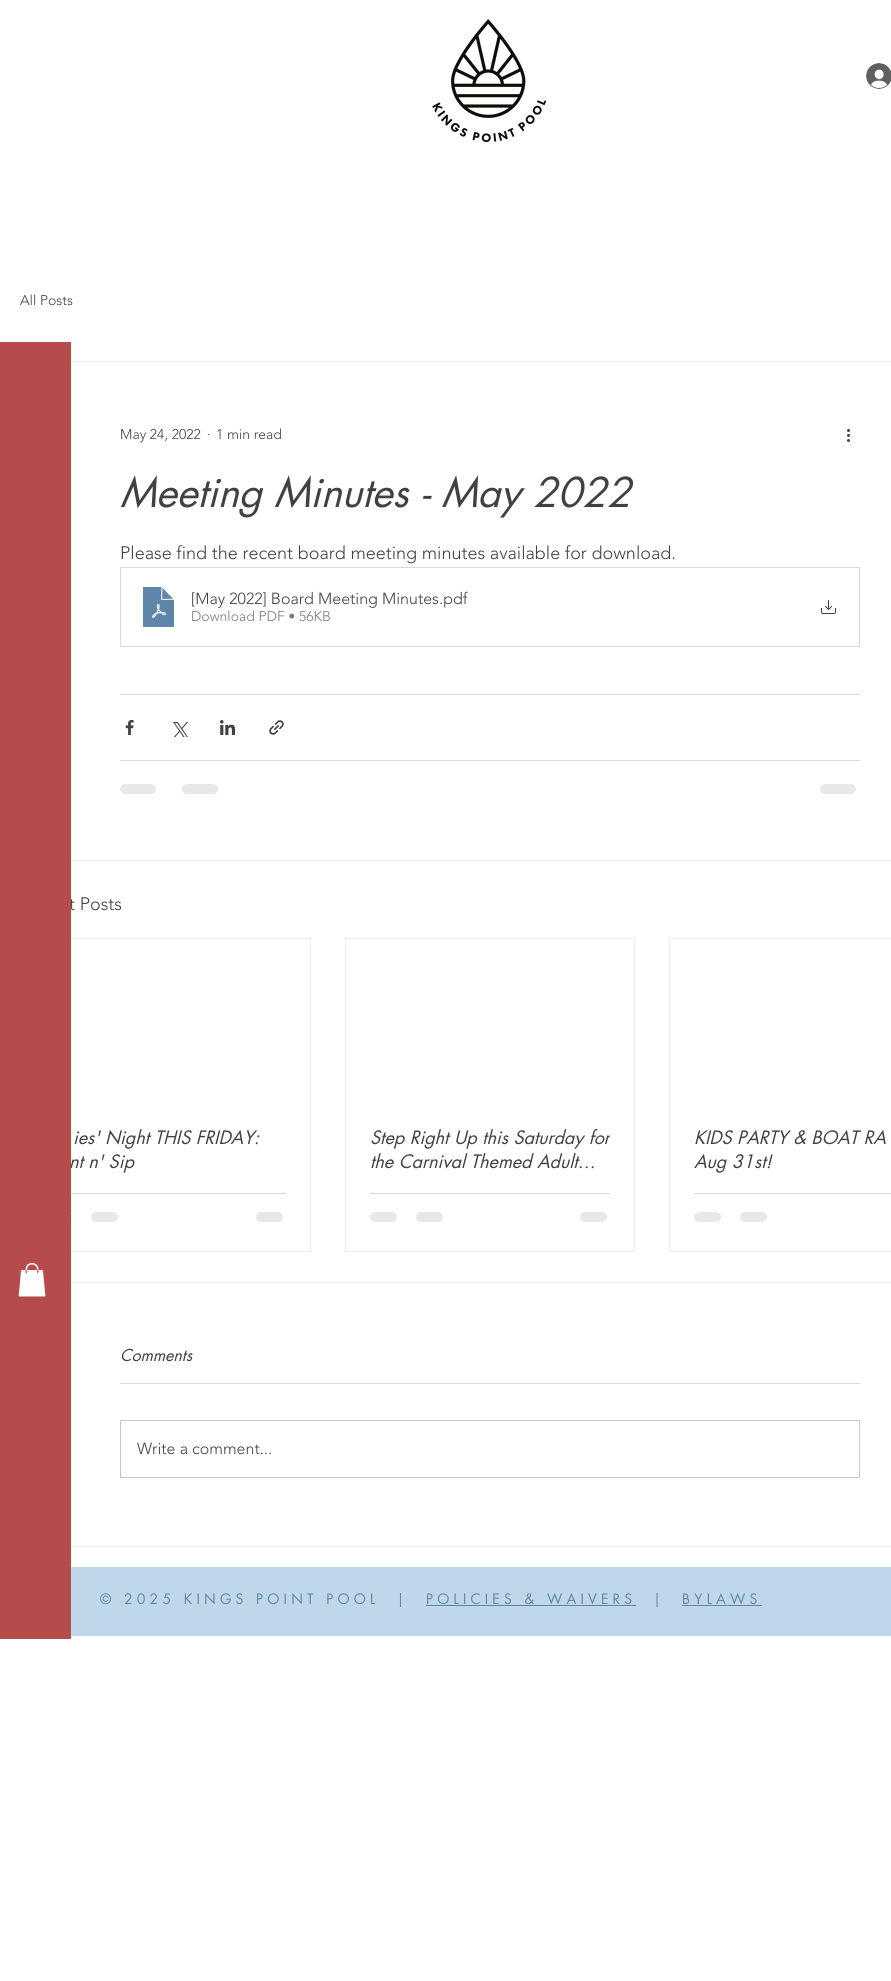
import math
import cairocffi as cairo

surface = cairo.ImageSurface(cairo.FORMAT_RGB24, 891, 1981)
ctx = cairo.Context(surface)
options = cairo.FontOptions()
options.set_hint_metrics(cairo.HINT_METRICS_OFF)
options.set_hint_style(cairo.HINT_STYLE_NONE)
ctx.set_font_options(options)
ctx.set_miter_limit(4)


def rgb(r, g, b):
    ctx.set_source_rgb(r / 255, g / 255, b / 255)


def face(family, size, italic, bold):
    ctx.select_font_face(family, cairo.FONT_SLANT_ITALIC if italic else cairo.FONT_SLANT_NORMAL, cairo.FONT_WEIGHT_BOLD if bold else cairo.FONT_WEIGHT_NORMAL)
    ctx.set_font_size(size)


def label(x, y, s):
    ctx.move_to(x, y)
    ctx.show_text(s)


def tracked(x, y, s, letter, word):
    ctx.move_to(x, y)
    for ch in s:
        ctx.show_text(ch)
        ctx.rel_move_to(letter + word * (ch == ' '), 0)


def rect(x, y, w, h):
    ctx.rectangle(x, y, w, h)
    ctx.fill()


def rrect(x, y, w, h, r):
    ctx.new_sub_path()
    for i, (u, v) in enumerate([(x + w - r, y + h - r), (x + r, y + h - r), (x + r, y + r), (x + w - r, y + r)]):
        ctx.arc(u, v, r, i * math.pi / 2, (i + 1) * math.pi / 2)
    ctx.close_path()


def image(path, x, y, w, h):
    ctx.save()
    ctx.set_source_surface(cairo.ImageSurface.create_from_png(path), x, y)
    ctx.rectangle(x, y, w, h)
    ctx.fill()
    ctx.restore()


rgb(255, 255, 255)
ctx.paint()
image('image0.png', 432, 19, 115, 124)
image('image1.png', 866, 63, 25, 26)
face('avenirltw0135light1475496 Light', 14, 0, 0)
rgb(65, 65, 65)
label(20, 305, 'All Posts')
ctx.rectangle(20.5, 361.5, 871, 499)
rgb(238, 236, 236)
ctx.set_line_width(1)
ctx.stroke()
rgb(65, 65, 65)
label(120, 439, 'May 24, 2022')
label(207, 439, '·')
label(216, 439, '1 min read')
image('image2.png', 847, 429, 3, 13)
face('futura', 40, 1, 0)
label(120, 507, 'Meeting Minutes - May 2022')
face('avenirltw0135light1475496 Light', 18, 0, 0)
label(120, 559, 'Please find the recent board meeting minutes available for download.')
ctx.rectangle(120.5, 567.5, 739, 79)
rgb(217, 217, 217)
ctx.stroke()
image('image3.png', 142, 586, 33, 42)
face('avenirltw0135light1475496 Light', 16, 0, 0)
rgb(65, 65, 65)
label(191, 604, '[May 2022] Board Meeting Minutes')
label(439, 604, '.pdf')
face('avenirltw0135light1475496 Light', 14, 0, 0)
rgb(122, 122, 122)
label(191, 621, 'Download PDF • 56KB')
image('image4.png', 821, 600, 15, 14)
rgb(217, 217, 217)
rect(120, 694, 740, 1)
image('image5.png', 125, 720, 9, 15)
image('image6.png', 173, 722, 15, 15)
image('image7.png', 220, 720, 15, 15)
image('image8.png', 269, 720, 15, 15)
rect(120, 760, 740, 1)
rgb(232, 232, 232)
rrect(120, 784, 36, 10, 5)
ctx.fill()
rrect(182, 784, 36, 10, 5)
ctx.fill()
rrect(820, 784, 36, 10, 5)
ctx.fill()
face('avenirltw0135light1475496 Light', 18, 0, 0)
rgb(65, 65, 65)
label(69, 910, 't Posts')
ctx.rectangle(20.5, 938.5, 290, 313)
rgb(238, 236, 236)
ctx.stroke()
face('futura', 18, 1, 0)
rgb(65, 65, 65)
label(73, 1144, 'ies\' Night THIS FRIDAY:')
label(69, 1168, 'nt n\' Sip')
rgb(217, 217, 217)
rect(71, 1193, 215, 1)
rgb(232, 232, 232)
rrect(45, 1212, 27, 10, 5)
ctx.fill()
rrect(91, 1212, 27, 10, 5)
ctx.fill()
rrect(256, 1212, 27, 10, 5)
ctx.fill()
ctx.rectangle(345.5, 938.5, 289, 313)
rgb(238, 236, 236)
ctx.stroke()
ctx.save()
ctx.rectangle(370, 1125, 240, 48)
ctx.clip()
rgb(65, 65, 65)
label(370, 1144, 'Step Right Up this Saturday for')
ctx.restore()
rgb(65, 65, 65)
label(370, 1168, 'the Carnival Themed Adult…')
rgb(217, 217, 217)
rect(370, 1193, 240, 1)
rgb(232, 232, 232)
rrect(370, 1212, 27, 10, 5)
ctx.fill()
rrect(416, 1212, 27, 10, 5)
ctx.fill()
rrect(580, 1212, 27, 10, 5)
ctx.fill()
ctx.rectangle(669.5, 938.5, 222, 313)
rgb(238, 236, 236)
ctx.stroke()
rgb(65, 65, 65)
label(694, 1144, 'KIDS PARTY & BOAT RA')
label(694, 1168, 'Aug 31st!')
rgb(217, 217, 217)
rect(694, 1193, 197, 1)
rgb(232, 232, 232)
rrect(694, 1212, 27, 10, 5)
ctx.fill()
rrect(740, 1212, 27, 10, 5)
ctx.fill()
ctx.rectangle(20.5, 1282.5, 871, 264)
rgb(238, 236, 236)
ctx.stroke()
face('futura', 16, 1, 0)
rgb(65, 65, 65)
label(120, 1361, 'Comments')
rgb(217, 217, 217)
rect(120, 1383, 740, 1)
ctx.rectangle(120.5, 1420.5, 739, 57)
rgb(198, 198, 198)
ctx.stroke()
face('avenirltw0135light1475496 Light', 16, 0, 0)
rgb(65, 65, 65)
label(137, 1454, 'Write a comment...')
rgb(182, 75, 75)
rect(0, 342, 71, 1297)
image('image9.png', 18, 1263, 28, 34)
rgb(192, 215, 234)
rect(71, 1567, 820, 69)
face('futura', 14, 0, 0)
rgb(95, 134, 169)
tracked(100, 1604, '© 2025 KINGS POINT POOL  |', 4.2, 0)
tracked(426, 1604, 'POLICIES & WAIVERS', 4.2, 0)
rect(426, 1605, 210, 1)
tracked(653, 1604, '|', 4.2, 0)
tracked(682, 1604, 'BYLAWS', 4.2, 0)
rect(682, 1605, 80, 1)
surface.write_to_png('render.png')
